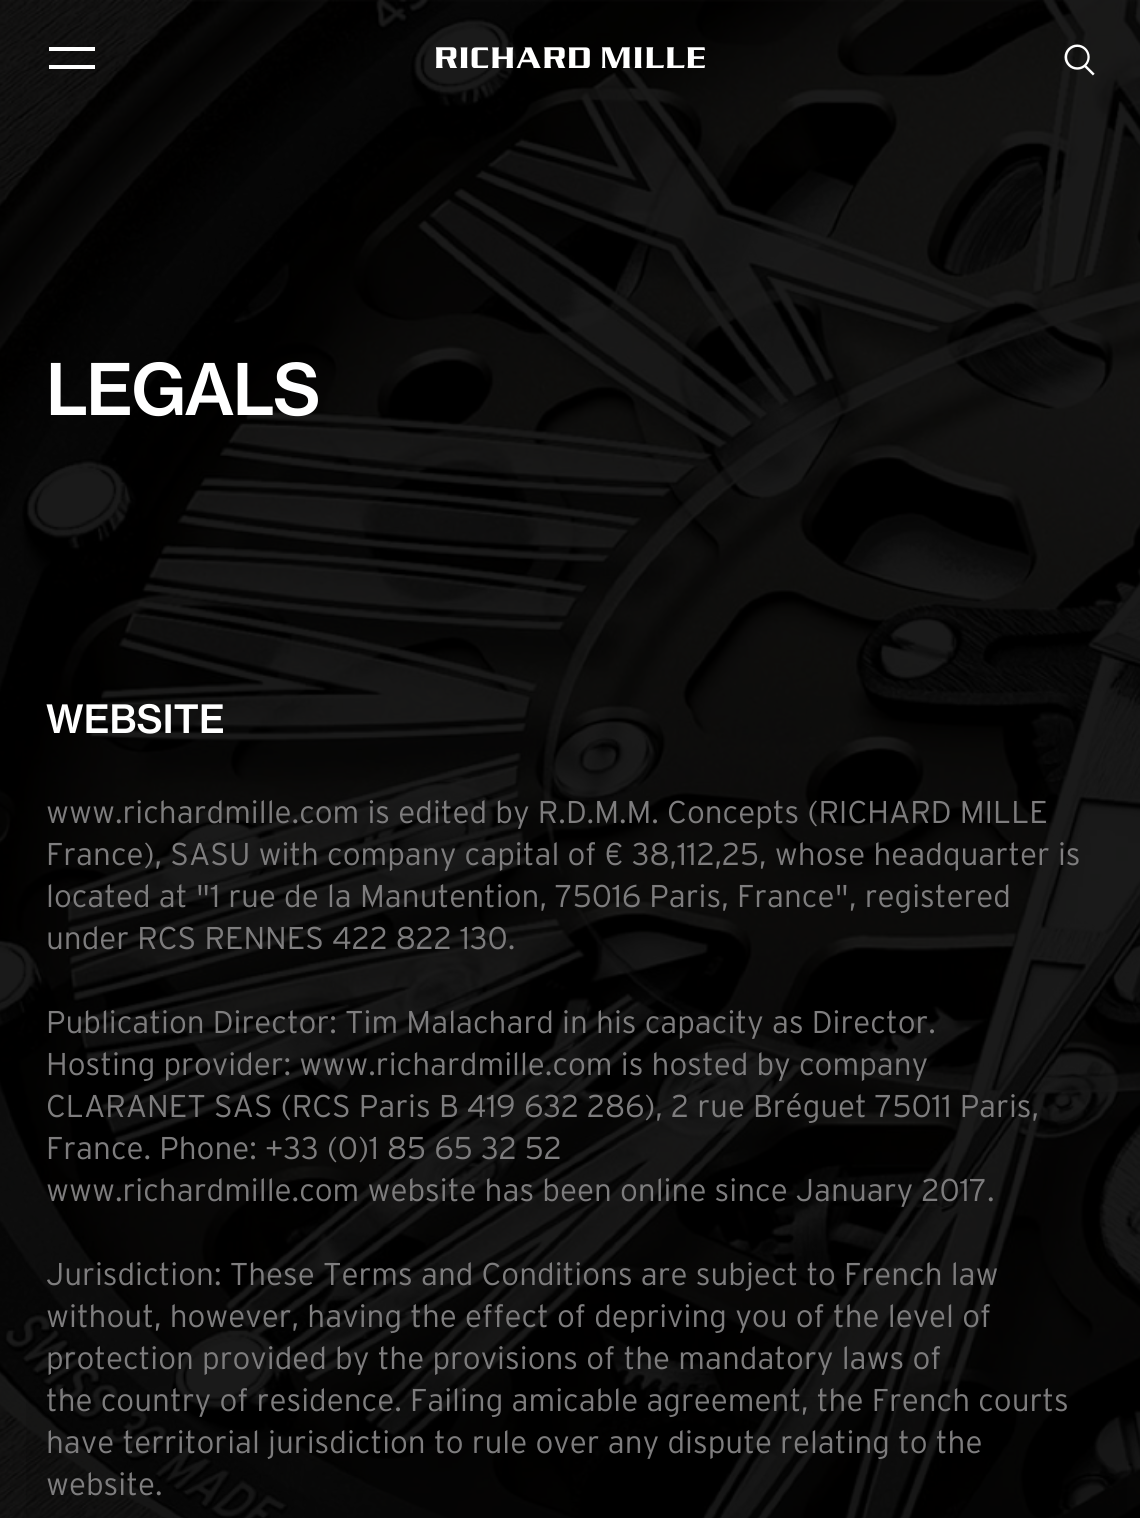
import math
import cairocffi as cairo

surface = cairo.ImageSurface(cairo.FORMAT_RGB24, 1140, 1518)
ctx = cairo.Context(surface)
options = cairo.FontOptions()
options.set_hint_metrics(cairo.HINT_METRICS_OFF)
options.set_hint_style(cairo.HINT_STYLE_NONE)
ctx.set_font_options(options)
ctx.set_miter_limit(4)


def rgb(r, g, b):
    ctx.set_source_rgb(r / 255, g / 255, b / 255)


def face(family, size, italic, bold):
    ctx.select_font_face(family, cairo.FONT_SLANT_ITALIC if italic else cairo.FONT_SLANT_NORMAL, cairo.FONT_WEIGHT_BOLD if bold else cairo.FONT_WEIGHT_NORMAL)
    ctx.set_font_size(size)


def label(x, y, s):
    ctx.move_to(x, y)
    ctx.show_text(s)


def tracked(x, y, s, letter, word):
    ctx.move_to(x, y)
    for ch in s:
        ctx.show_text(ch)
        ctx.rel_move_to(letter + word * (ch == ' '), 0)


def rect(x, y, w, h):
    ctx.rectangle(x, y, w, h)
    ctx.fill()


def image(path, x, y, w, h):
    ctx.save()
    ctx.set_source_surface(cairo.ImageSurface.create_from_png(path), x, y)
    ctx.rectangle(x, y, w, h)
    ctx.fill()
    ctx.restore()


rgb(0, 0, 0)
ctx.paint()
image('image2.png', 0, 0, 1140, 1518)
rgb(255, 255, 255)
rect(49, 47, 46, 4)
rect(49, 65, 46, 4)
image('image0.png', 436, 47, 269, 21)
image('image1.png', 1064, 44, 31, 32)
gradient = cairo.LinearGradient(571, 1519, 571, 0)
gradient.add_color_stop_rgba(0.08, 0, 0, 0, 0.1)
gradient.add_color_stop_rgba(0.63, 0, 0, 0, 0)
ctx.set_source(gradient)
rect(26, 1397, 1101, 121)
face('Neue Haas Grotesk Medium', 70, 0, 0)
rgb(255, 255, 255)
tracked(46, 415, 'LEGALS', -1.75, 0)
face('Neue Haas Grotesk Medium', 38.5, 0, 0)
label(46, 733, 'WEBSITE')
face('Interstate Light', 31.5, 0, 0)
rgb(126, 125, 126)
label(46, 823, 'www.richardmille.com is edited by R.D.M.M. Concepts (RICHARD MILLE')
label(46, 865, 'France), SASU with company capital of € 38,112,25, whose headquarter is')
label(46, 907, 'located at "1 rue de la Manutention, 75016 Paris, France", registered')
label(46, 949, 'under RCS RENNES 422 822 130.')
label(46, 1033, 'Publication Director: Tim Malachard in his capacity as Director.')
label(46, 1075, 'Hosting provider: www.richardmille.com is hosted by company')
label(46, 1117, 'CLARANET SAS (RCS Paris B 419 632 286), 2 rue Bréguet 75011 Paris,')
label(46, 1159, 'France. Phone: +33 (0)1 85 65 32 52')
label(46, 1201, 'www.richardmille.com website has been online since January 2017.')
label(46, 1285, 'Jurisdiction: These Terms and Conditions are subject to French law')
label(46, 1327, 'without, however, having the effect of depriving you of the level of')
label(46, 1369, 'protection provided by the provisions of the mandatory laws of')
label(46, 1411, 'the country of residence. Failing amicable agreement, the French courts')
label(46, 1453, 'have territorial jurisdiction to rule over any dispute relating to the')
label(46, 1495, 'website.')
surface.write_to_png('render.png')
